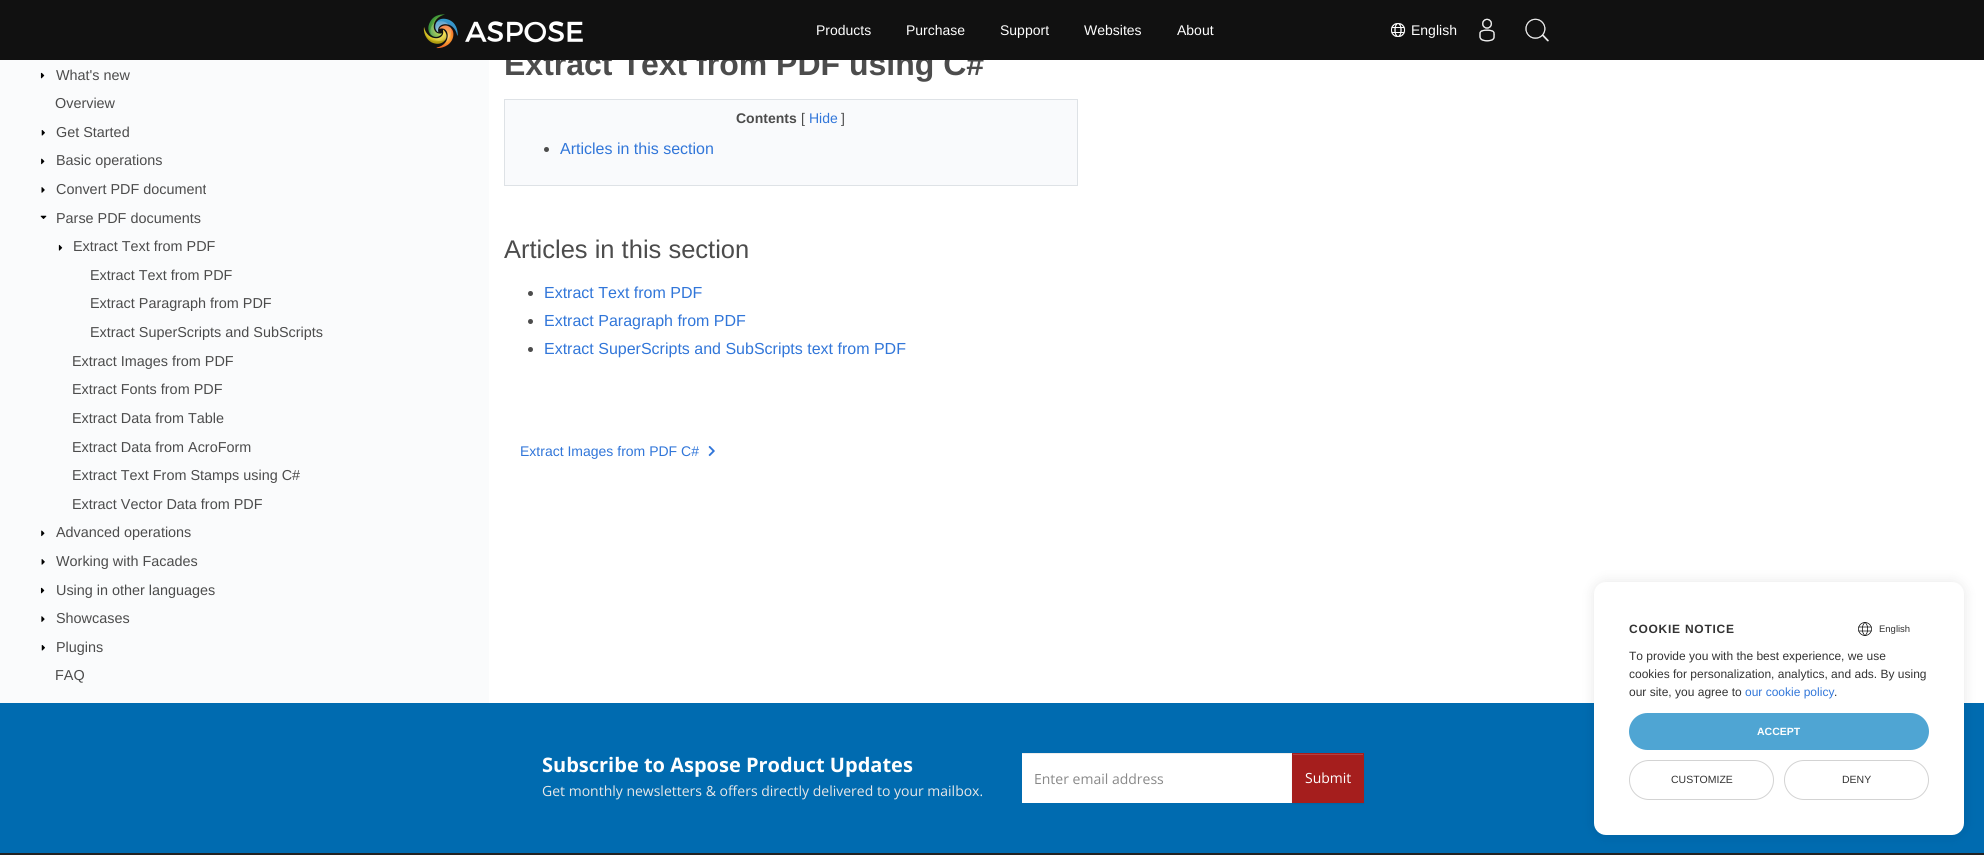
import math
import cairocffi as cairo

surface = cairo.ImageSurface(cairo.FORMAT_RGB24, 1984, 855)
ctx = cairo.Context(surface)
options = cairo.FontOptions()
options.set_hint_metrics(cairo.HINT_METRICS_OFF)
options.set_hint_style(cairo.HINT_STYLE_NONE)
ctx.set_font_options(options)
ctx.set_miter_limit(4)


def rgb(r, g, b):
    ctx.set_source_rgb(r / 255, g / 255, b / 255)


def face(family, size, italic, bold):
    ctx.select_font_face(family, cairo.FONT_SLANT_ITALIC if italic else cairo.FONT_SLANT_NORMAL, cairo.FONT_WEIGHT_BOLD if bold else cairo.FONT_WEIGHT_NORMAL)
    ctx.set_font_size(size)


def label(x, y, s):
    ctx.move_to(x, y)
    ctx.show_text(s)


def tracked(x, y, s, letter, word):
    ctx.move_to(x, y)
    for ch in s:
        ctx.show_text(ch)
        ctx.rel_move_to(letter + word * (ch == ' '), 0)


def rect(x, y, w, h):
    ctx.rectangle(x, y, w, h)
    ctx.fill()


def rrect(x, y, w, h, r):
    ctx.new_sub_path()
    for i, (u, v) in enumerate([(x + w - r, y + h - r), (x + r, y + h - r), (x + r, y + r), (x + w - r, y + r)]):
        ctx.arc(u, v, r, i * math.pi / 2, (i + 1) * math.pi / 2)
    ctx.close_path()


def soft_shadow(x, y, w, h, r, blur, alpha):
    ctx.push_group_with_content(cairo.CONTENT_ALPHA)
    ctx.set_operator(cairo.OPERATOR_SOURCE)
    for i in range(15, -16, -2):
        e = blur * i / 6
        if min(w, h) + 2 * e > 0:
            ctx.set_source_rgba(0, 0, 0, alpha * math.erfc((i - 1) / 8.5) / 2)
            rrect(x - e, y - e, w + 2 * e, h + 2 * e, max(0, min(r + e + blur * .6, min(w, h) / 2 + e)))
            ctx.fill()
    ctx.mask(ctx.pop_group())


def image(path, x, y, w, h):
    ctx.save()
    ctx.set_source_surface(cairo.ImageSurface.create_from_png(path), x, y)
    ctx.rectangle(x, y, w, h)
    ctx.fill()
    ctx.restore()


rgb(255, 255, 255)
ctx.paint()
face('Liberation Sans', 32, 0, 1)
rgb(76, 76, 76)
label(504, 75, 'Extract Text from PDF using C#')
rgb(17, 17, 17)
rect(0, 0, 1984, 60)
image('image0.png', 423, 14, 160, 35)
face('Liberation Sans', 14, 0, 0)
rgb(254, 254, 254)
label(816, 35, 'Products')
label(906, 35, 'Purchase')
label(1000, 35, 'Support')
label(1084, 35, 'Websites')
label(1177, 35, 'About')
image('image1.png', 1391, 23, 15, 14)
label(1411, 35, 'English')
image('image2.png', 1479, 18, 16, 24)
image('image3.png', 1525, 18, 24, 24)
rgb(250, 251, 252)
rect(0, 60, 489, 643)
image('image4.png', 40, 72, 5, 7)
face('Liberation Sans', 14.4, 0, 0)
rgb(76, 76, 76)
label(56, 80, 'What\'s new')
label(55, 108, 'Overview')
image('image5.png', 41, 130, 4, 6)
label(56, 137, 'Get Started')
image('image6.png', 41, 158, 4, 7)
label(56, 165, 'Basic operations')
image('image7.png', 41, 187, 4, 6)
label(56, 194, 'Convert PDF document')
image('image8.png', 40, 215, 7, 4)
label(56, 223, 'Parse PDF documents')
image('image9.png', 58, 244, 5, 7)
label(73, 251, 'Extract Text from PDF')
label(90, 280, 'Extract Text from PDF')
label(90, 308, 'Extract Paragraph from PDF')
label(90, 337, 'Extract SuperScripts and SubScripts')
label(72, 366, 'Extract Images from PDF')
label(72, 394, 'Extract Fonts from PDF')
label(72, 423, 'Extract Data from Table')
label(72, 452, 'Extract Data from AcroForm')
label(72, 480, 'Extract Text From Stamps using C#')
label(72, 509, 'Extract Vector Data from PDF')
image('image10.png', 41, 530, 4, 7)
label(56, 537, 'Advanced operations')
image('image11.png', 41, 559, 4, 6)
label(56, 566, 'Working with Facades')
image('image12.png', 40, 587, 5, 7)
label(56, 595, 'Using in other languages')
image('image13.png', 41, 616, 4, 6)
label(56, 623, 'Showcases')
image('image14.png', 41, 645, 4, 6)
label(56, 652, 'Plugins')
label(55, 680, 'FAQ')
rgb(249, 250, 252)
ctx.rectangle(504.5, 99.5, 573, 86)
ctx.fill_preserve()
rgb(222, 226, 230)
ctx.set_line_width(1)
ctx.stroke()
face('Liberation Sans', 14, 0, 1)
rgb(76, 76, 76)
label(736, 123, 'Contents')
face('Liberation Sans', 14, 0, 0)
label(801, 123, '[')
rgb(49, 118, 217)
label(809, 123, 'Hide')
rgb(76, 76, 76)
label(841, 123, ']')
ctx.new_path()
ctx.arc(546.5, 149.5, 2.5, 0, 2 * math.pi)
ctx.fill()
face('Liberation Sans', 16, 0, 0)
rgb(49, 118, 217)
label(560, 154, 'Articles in this section')
face('Liberation Sans', 25.5, 0, 0)
rgb(76, 76, 76)
label(504, 258, 'Articles in this section')
ctx.new_path()
ctx.arc(530.5, 293.5, 2.5, 0, 2 * math.pi)
ctx.fill()
face('Liberation Sans', 16, 0, 0)
rgb(49, 118, 217)
label(544, 298, 'Extract Text from PDF')
rgb(76, 76, 76)
ctx.new_path()
ctx.arc(530.5, 321.5, 2.5, 0, 2 * math.pi)
ctx.fill()
rgb(49, 118, 217)
label(544, 326, 'Extract Paragraph from PDF')
rgb(76, 76, 76)
ctx.new_path()
ctx.arc(530.5, 349.5, 2.5, 0, 2 * math.pi)
ctx.fill()
rgb(49, 118, 217)
label(544, 354, 'Extract SuperScripts and SubScripts text from PDF')
face('Liberation Sans', 14, 0, 0)
label(520, 456, 'Extract Images from PDF C#')
image('image15.png', 708, 445, 7, 12)
rgb(0, 107, 176)
rect(0, 703, 1984, 150)
face('Open Sans', 20, 0, 1)
rgb(254, 254, 254)
label(542, 772, 'Subscribe to Aspose Product Updates')
face('Open Sans', 14, 0, 0)
rgb(232, 232, 232)
label(542, 796, 'Get monthly newsletters & offers directly delivered to your mailbox.')
rgb(255, 255, 255)
rect(1022, 754, 270, 49)
rgb(236, 236, 236)
rect(1022, 753, 270, 1)
rgb(136, 136, 136)
label(1034, 784, 'Enter email address')
rgb(0, 0, 0)
soft_shadow(1292, 754, 72, 50, 0, 0.5, 0.07)
rgb(165, 30, 29)
rect(1292, 753, 72, 50)
rgb(179, 64, 63)
rect(1293, 754, 70, 1)
rgb(254, 254, 254)
label(1305, 783, 'Submit')
gradient = cairo.LinearGradient(992, 853, 992, 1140)
gradient.add_color_stop_rgba(0.3, 0.133, 0.133, 0.133, 1)
gradient.add_color_stop_rgba(1, 0.267, 0.267, 0.267, 1)
ctx.set_source(gradient)
rect(0, 853, 1984, 2)
rgb(0, 0, 0)
soft_shadow(1594, 582, 370, 253, 12, 6.5, 0.1)
rgb(255, 255, 255)
rrect(1594, 582, 370, 253, 12)
ctx.fill()
face('Liberation Sans', 12, 0, 1)
rgb(51, 51, 51)
tracked(1629, 633, 'COOKIE NOTICE', 0.75, 0)
image('image16.png', 1858, 622, 14, 14)
face('Liberation Sans', 9.5, 0, 0)
label(1879, 632, 'English')
face('Liberation Sans', 12, 0, 0)
label(1629, 660, 'To provide you with the best experience, we use')
label(1629, 678, 'cookies for personalization, analytics, and ads. By using')
label(1629, 696, 'our site, you agree to')
rgb(49, 118, 217)
label(1745, 696, 'our cookie policy')
rgb(51, 51, 51)
label(1834, 696, '.')
rgb(79, 165, 211)
rrect(1629, 713, 300, 37, 18.5)
ctx.fill()
face('Liberation Sans', 10.5, 0, 1)
rgb(254, 254, 254)
label(1757, 735, 'ACCEPT')
rrect(1629.5, 760.5, 144, 39, 19.5)
rgb(211, 211, 211)
ctx.stroke()
face('Liberation Sans', 10.5, 0, 0)
rgb(51, 51, 51)
label(1671, 783, 'CUSTOMIZE')
rrect(1784.5, 760.5, 144, 39, 19.5)
rgb(211, 211, 211)
ctx.stroke()
rgb(51, 51, 51)
label(1842, 783, 'DENY')
surface.write_to_png('render.png')
